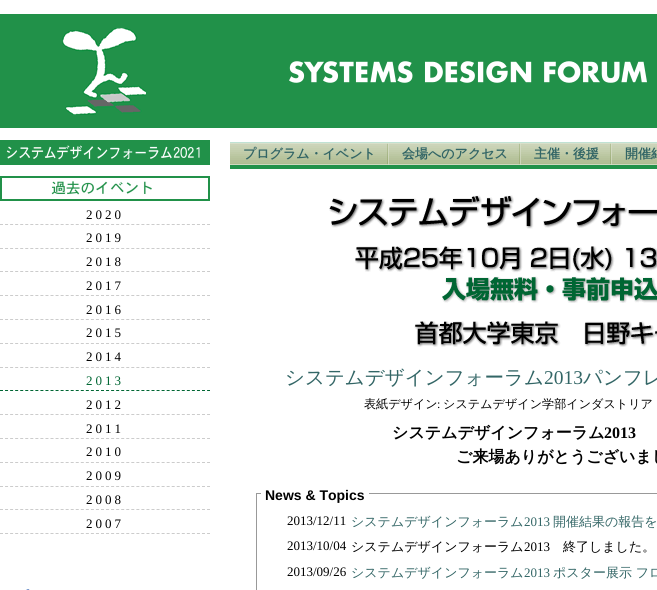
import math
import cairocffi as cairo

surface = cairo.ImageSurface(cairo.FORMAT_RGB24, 657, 590)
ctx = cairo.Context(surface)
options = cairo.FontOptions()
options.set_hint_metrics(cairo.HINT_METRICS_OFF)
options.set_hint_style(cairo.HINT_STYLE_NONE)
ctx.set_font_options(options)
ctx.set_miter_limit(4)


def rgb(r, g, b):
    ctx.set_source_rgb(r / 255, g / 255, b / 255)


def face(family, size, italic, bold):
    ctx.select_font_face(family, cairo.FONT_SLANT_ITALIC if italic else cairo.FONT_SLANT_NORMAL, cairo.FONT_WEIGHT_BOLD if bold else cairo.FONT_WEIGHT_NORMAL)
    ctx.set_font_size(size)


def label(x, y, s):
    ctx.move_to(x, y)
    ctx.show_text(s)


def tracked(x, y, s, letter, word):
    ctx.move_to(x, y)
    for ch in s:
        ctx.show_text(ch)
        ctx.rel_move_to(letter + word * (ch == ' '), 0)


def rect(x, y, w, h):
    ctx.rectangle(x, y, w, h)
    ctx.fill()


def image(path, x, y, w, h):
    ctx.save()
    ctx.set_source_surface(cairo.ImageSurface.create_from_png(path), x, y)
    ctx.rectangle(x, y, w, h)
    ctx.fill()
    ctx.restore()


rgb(255, 255, 255)
ctx.paint()
rgb(33, 145, 73)
rect(0, 14, 657, 114)
image('image0.png', 62, 28, 84, 87)
image('image1.png', 289, 61, 358, 22)
rect(0, 140, 210, 25)
image('image2.png', 6, 145, 194, 15)
ctx.rectangle(1, 177, 208, 23)
ctx.stroke()
image('image3.png', 51, 181, 101, 14)
ctx.new_path()
ctx.move_to(0, 224.5)
ctx.line_to(210, 224.5)
rgb(204, 204, 204)
ctx.set_line_width(1)
ctx.set_dash([3, 2.05])
ctx.stroke()
face('Liberation Serif', 13, 0, 0)
rgb(0, 0, 0)
tracked(86, 219, '2020', 3, 0)
ctx.new_path()
ctx.move_to(0, 248.5)
ctx.line_to(210, 248.5)
rgb(204, 204, 204)
ctx.stroke()
rgb(0, 0, 0)
tracked(86, 242, '2019', 3, 0)
ctx.new_path()
ctx.move_to(0, 271.5)
ctx.line_to(210, 271.5)
rgb(204, 204, 204)
ctx.stroke()
rgb(0, 0, 0)
tracked(86, 266, '2018', 3, 0)
ctx.new_path()
ctx.move_to(0, 295.5)
ctx.line_to(210, 295.5)
rgb(204, 204, 204)
ctx.stroke()
rgb(0, 0, 0)
tracked(86, 290, '2017', 3, 0)
ctx.new_path()
ctx.move_to(0, 319.5)
ctx.line_to(210, 319.5)
rgb(204, 204, 204)
ctx.stroke()
rgb(0, 0, 0)
tracked(86, 314, '2016', 3, 0)
ctx.new_path()
ctx.move_to(0, 343.5)
ctx.line_to(210, 343.5)
rgb(204, 204, 204)
ctx.stroke()
rgb(0, 0, 0)
tracked(86, 337, '2015', 3, 0)
ctx.new_path()
ctx.move_to(0, 367.5)
ctx.line_to(210, 367.5)
rgb(204, 204, 204)
ctx.stroke()
rgb(0, 0, 0)
tracked(86, 361, '2014', 3, 0)
ctx.new_path()
ctx.move_to(0, 390.5)
ctx.line_to(210, 390.5)
rgb(0, 102, 51)
ctx.stroke()
tracked(86, 385, '2013', 3, 0)
ctx.new_path()
ctx.move_to(0, 414.5)
ctx.line_to(210, 414.5)
rgb(204, 204, 204)
ctx.stroke()
rgb(0, 0, 0)
tracked(86, 409, '2012', 3, 0)
ctx.new_path()
ctx.move_to(0, 438.5)
ctx.line_to(210, 438.5)
rgb(204, 204, 204)
ctx.stroke()
rgb(0, 0, 0)
tracked(86, 433, '2011', 3, 0)
ctx.new_path()
ctx.move_to(0, 462.5)
ctx.line_to(210, 462.5)
rgb(204, 204, 204)
ctx.stroke()
rgb(0, 0, 0)
tracked(86, 456, '2010', 3, 0)
ctx.new_path()
ctx.move_to(0, 486.5)
ctx.line_to(210, 486.5)
rgb(204, 204, 204)
ctx.stroke()
rgb(0, 0, 0)
tracked(86, 480, '2009', 3, 0)
ctx.new_path()
ctx.move_to(0, 509.5)
ctx.line_to(210, 509.5)
rgb(204, 204, 204)
ctx.stroke()
rgb(0, 0, 0)
tracked(86, 504, '2008', 3, 0)
ctx.new_path()
ctx.move_to(0, 533.5)
ctx.line_to(210, 533.5)
rgb(204, 204, 204)
ctx.stroke()
rgb(0, 0, 0)
tracked(86, 528, '2007', 3, 0)
image('image4.png', 26, 589, 4, 1)
image('image5.png', 230, 143, 427, 22)
rgb(192, 226, 212)
rect(230, 142, 427, 1)
rgb(33, 145, 73)
rect(230, 165, 427, 4)
image('image6.png', 387, 143, 2, 22)
face('WenQuanYi Zen Hei', 13, 0, 1)
rgb(51, 102, 102)
label(243, 158, 'プログラム・イベント')
image('image6.png', 519, 143, 2, 22)
label(402, 158, '会場へのアクセス')
image('image6.png', 610, 143, 2, 22)
label(534, 158, '主催・後援')
label(625, 158, '開催結')
image('image7.png', 329, 195, 328, 34)
image('image8.png', 355, 246, 302, 57)
image('image9.png', 414, 321, 243, 26)
face('WenQuanYi Zen Hei Medium', 19.5, 0, 0)
label(285, 384, 'システムデザインフォーラム')
face('Liberation Serif', 19.5, 0, 0)
label(544, 384, '2013')
face('WenQuanYi Zen Hei Medium', 19.5, 0, 0)
label(583, 384, 'パンフレ')
face('WenQuanYi Zen Hei Medium', 12.1, 0, 0)
rgb(0, 0, 0)
label(364, 408, '表紙デザイン')
face('Liberation Serif', 12.1, 0, 0)
label(437, 408, ':')
face('WenQuanYi Zen Hei Medium', 12.1, 0, 0)
tracked(443, 408, 'システムデザイン学部インダストリア', 0, -1)
face('WenQuanYi Zen Hei', 16, 0, 1)
label(392, 438, 'システムデザインフォーラム')
face('Liberation Serif', 16, 0, 1)
label(604, 438, '2013')
face('WenQuanYi Zen Hei', 16, 0, 1)
label(456, 462, 'ご来場ありがとうございまし')
ctx.rectangle(256.5, 493.5, 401, 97)
rgb(153, 153, 153)
ctx.set_dash([])
ctx.stroke()
rgb(255, 255, 255)
rect(261, 493, 108, 1)
face('Liberation Sans', 14, 0, 1)
rgb(0, 0, 0)
label(265, 500, 'News & Topics')
face('Liberation Serif', 13, 0, 0)
label(287, 525, '2013/12/11')
face('WenQuanYi Zen Hei Medium', 13, 0, 0)
rgb(51, 102, 102)
label(351, 526, 'システムデザインフォーラム')
face('Liberation Serif', 13, 0, 0)
label(524, 526, '2013')
face('WenQuanYi Zen Hei Medium', 13, 0, 0)
label(553, 526, '開催結果の報告を')
face('Liberation Serif', 13, 0, 0)
rgb(0, 0, 0)
label(287, 550, '2013/10/04')
face('WenQuanYi Zen Hei Medium', 13, 0, 0)
label(351, 551, 'システムデザインフォーラム')
face('Liberation Serif', 13, 0, 0)
label(524, 551, '2013')
face('WenQuanYi Zen Hei Medium', 13, 0, 0)
label(563, 551, '終了しました。')
face('Liberation Serif', 13, 0, 0)
label(287, 576, '2013/09/26')
face('WenQuanYi Zen Hei Medium', 13, 0, 0)
rgb(51, 102, 102)
label(351, 577, 'システムデザインフォーラム')
face('Liberation Serif', 13, 0, 0)
label(524, 577, '2013')
face('WenQuanYi Zen Hei Medium', 13, 0, 0)
label(553, 577, 'ポスター展示 フロ')
surface.write_to_png('render.png')
